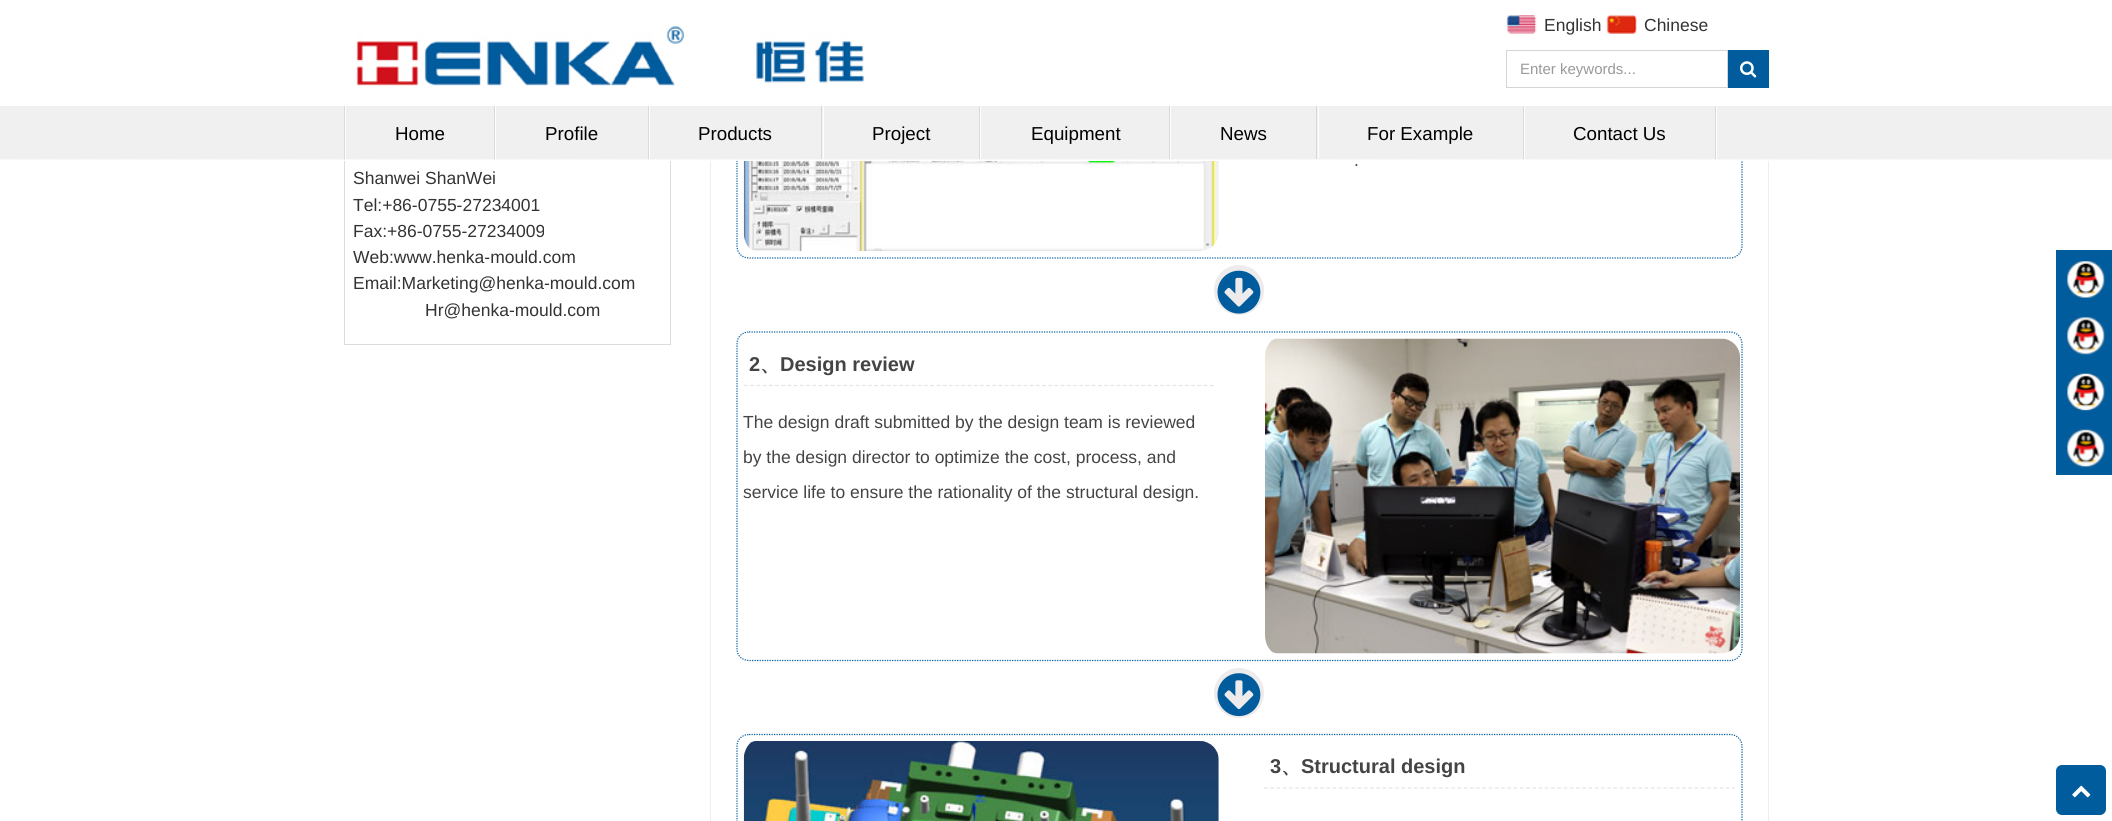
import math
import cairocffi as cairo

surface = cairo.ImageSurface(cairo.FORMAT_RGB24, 2112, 821)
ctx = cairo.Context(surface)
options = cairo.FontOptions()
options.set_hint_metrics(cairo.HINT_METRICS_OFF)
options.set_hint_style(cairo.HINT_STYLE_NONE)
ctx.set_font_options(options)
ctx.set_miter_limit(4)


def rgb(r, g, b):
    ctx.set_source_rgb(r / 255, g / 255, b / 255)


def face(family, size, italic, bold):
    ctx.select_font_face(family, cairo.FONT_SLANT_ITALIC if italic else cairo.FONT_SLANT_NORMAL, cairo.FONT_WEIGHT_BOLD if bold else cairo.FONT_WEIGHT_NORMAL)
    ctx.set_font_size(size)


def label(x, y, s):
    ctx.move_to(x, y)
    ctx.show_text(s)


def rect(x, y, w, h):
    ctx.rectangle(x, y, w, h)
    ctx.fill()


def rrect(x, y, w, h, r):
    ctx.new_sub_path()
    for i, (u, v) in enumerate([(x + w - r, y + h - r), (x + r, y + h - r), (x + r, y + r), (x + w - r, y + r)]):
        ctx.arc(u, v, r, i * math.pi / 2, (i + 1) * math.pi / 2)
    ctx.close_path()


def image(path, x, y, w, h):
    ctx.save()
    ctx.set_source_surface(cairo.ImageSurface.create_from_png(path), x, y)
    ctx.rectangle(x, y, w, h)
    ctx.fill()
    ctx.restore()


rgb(255, 255, 255)
ctx.paint()
ctx.rectangle(344.5, -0.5, 326, 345)
rgb(220, 220, 220)
ctx.set_line_width(1)
ctx.stroke()
ctx.rectangle(710.5, -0.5, 1058, 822)
rgb(238, 238, 238)
ctx.stroke()
ctx.new_path()
ctx.move_to(749, -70.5)
ctx.line_to(1730, -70.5)
ctx.curve_to(1736.5, -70.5, 1742, -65.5, 1742, -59)
ctx.line_to(1742, 246)
ctx.curve_to(1742, 253, 1736.5, 258, 1730, 258)
ctx.line_to(749, 258)
ctx.curve_to(742, 258, 737, 253, 737, 246)
ctx.line_to(737, -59)
ctx.curve_to(737, -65.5, 742, -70.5, 749, -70.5)
ctx.close_path()
rgb(0, 92, 157)
ctx.set_line_width(1.2)
ctx.set_dash([1.25, 1.25])
ctx.stroke()
rgb(255, 255, 255)
rect(344, 0, 1425, 161)
image('image0.png', 356, 25, 508, 61)
image('image1.png', 1506, 15, 31, 19)
face('Liberation Sans', 17.5, 0, 0)
rgb(51, 51, 51)
label(1544, 31, 'English')
image('image2.png', 1606, 15, 31, 19)
label(1644, 31, 'Chinese')
ctx.rectangle(1506.5, 50.5, 221, 37)
rgb(213, 213, 213)
ctx.set_line_width(1)
ctx.set_dash([])
ctx.stroke()
face('Liberation Sans', 15, 0, 0)
rgb(153, 153, 153)
label(1520, 74, 'Enter keywords...')
rgb(0, 92, 157)
rect(1728, 50, 41, 38)
image('image3.png', 1740, 61, 17, 17)
rgb(240, 240, 240)
rect(0, 106, 2112, 54)
ctx.new_path()
ctx.move_to(0, 159.5)
ctx.line_to(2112.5, 159.5)
rgb(255, 255, 255)
ctx.set_line_width(1.2)
ctx.set_dash([1.25, 1.25])
ctx.stroke()
rgb(218, 215, 223)
rect(344, 106, 1, 53)
rect(494, 106, 1, 53)
rgb(255, 255, 255)
rect(345, 106, 1, 53)
face('Liberation Sans', 18.75, 0, 0)
rgb(0, 0, 0)
label(395, 140, 'Home')
rgb(218, 215, 223)
rect(648, 106, 1, 53)
rgb(255, 255, 255)
rect(495, 106, 1, 53)
rgb(0, 0, 0)
label(545, 140, 'Profile')
rgb(218, 215, 223)
rect(821, 106, 1, 53)
rgb(255, 255, 255)
rect(649, 106, 1, 53)
rgb(0, 0, 0)
label(698, 140, 'Products')
rgb(218, 215, 223)
rect(979, 106, 1, 53)
rgb(255, 255, 255)
rect(823, 106, 1, 53)
rgb(0, 0, 0)
label(872, 140, 'Project')
rgb(218, 215, 223)
rect(1169, 106, 1, 53)
rgb(255, 255, 255)
rect(980, 106, 1, 53)
rgb(0, 0, 0)
label(1031, 140, 'Equipment')
rgb(218, 215, 223)
rect(1316, 106, 1, 53)
rgb(255, 255, 255)
rect(1170, 106, 1, 53)
rgb(0, 0, 0)
label(1220, 140, 'News')
rgb(218, 215, 223)
rect(1523, 106, 1, 53)
rgb(255, 255, 255)
rect(1318, 106, 1, 53)
rgb(0, 0, 0)
label(1367, 140, 'For Example')
rgb(218, 215, 223)
rect(1715, 106, 1, 53)
rgb(255, 255, 255)
rect(1524, 106, 1, 53)
rgb(0, 0, 0)
label(1573, 140, 'Contact Us')
rgb(255, 255, 255)
rect(1716, 106, 1, 53)
face('Liberation Sans', 17.5, 0, 0)
rgb(51, 51, 51)
label(353, 184, 'Shanwei ShanWei')
label(353, 211, 'Tel:+86-0755-27234001')
label(353, 237, 'Fax:+86-0755-27234009')
label(353, 263, 'Web:www.henka-mould.com')
label(353, 289, 'Email:Marketing@henka-mould.com')
label(425, 316, 'Hr@henka-mould.com')
image('image4.png', 743, 161, 476, 90)
rgb(68, 68, 68)
label(1354, 166, '.')
rgb(237, 235, 235)
ctx.new_path()
ctx.arc(1239, 290, 25, 0, 2 * math.pi)
ctx.fill()
image('image5.png', 1217, 270, 44, 44)
ctx.new_path()
ctx.move_to(749, 332)
ctx.line_to(1730, 332)
ctx.curve_to(1736.5, 332, 1742, 337, 1742, 344)
ctx.line_to(1742, 649)
ctx.curve_to(1742, 655.5, 1736.5, 660.5, 1730, 660.5)
ctx.line_to(749, 660.5)
ctx.curve_to(742, 660.5, 737, 655.5, 737, 649)
ctx.line_to(737, 344)
ctx.curve_to(737, 337, 742, 332, 749, 332)
ctx.close_path()
rgb(0, 92, 157)
ctx.stroke()
ctx.new_path()
ctx.move_to(744, 385.5)
ctx.line_to(1214, 385.5)
rgb(230, 229, 229)
ctx.set_dash([3.75, 2.46])
ctx.stroke()
face('Liberation Sans', 20, 0, 1)
rgb(68, 68, 68)
label(749, 371, '2')
label(780, 371, 'Design review')
face('WenQuanYi Zen Hei', 20, 0, 1)
label(760, 371, '、')
face('Liberation Sans', 17.5, 0, 0)
label(743, 428, 'The design draft submitted by the design team is reviewed')
label(743, 463, 'by the design director to optimize the cost, process, and')
label(743, 498, 'service life to ensure the rationality of the structural design.')
image('image6.png', 1265, 338, 475, 316)
rgb(237, 235, 235)
ctx.arc(1239, 693, 25, 0, 2 * math.pi)
ctx.fill()
image('image7.png', 1217, 673, 44, 44)
ctx.new_path()
ctx.move_to(749, 734.5)
ctx.line_to(1730, 734.5)
ctx.curve_to(1736.5, 734.5, 1742, 739.5, 1742, 746)
ctx.line_to(1742, 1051)
ctx.curve_to(1742, 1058, 1736.5, 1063, 1730, 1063)
ctx.line_to(749, 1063)
ctx.curve_to(742, 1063, 737, 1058, 737, 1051)
ctx.line_to(737, 746)
ctx.curve_to(737, 739.5, 742, 734.5, 749, 734.5)
ctx.close_path()
rgb(0, 92, 157)
ctx.set_dash([1.25, 1.25])
ctx.stroke()
image('image8.png', 743, 741, 476, 80)
ctx.new_path()
ctx.move_to(1264, 788)
ctx.line_to(1735, 788)
rgb(230, 229, 229)
ctx.set_dash([3.75, 2.49])
ctx.stroke()
face('Liberation Sans', 20, 0, 1)
rgb(68, 68, 68)
label(1270, 773, '3')
face('WenQuanYi Zen Hei', 20, 0, 1)
label(1281, 773, '、')
face('Liberation Sans', 20, 0, 1)
label(1301, 773, 'Structural design')
rgb(0, 92, 157)
rect(2056, 250, 56, 225)
image('image9.png', 2067, 261, 38, 37)
image('image10.png', 2067, 317, 38, 38)
image('image11.png', 2067, 373, 38, 38)
image('image12.png', 2067, 429, 38, 39)
rrect(2056, 765, 50, 50, 6)
ctx.fill()
image('image13.png', 2072, 785, 19, 13)
surface.write_to_png('render.png')
